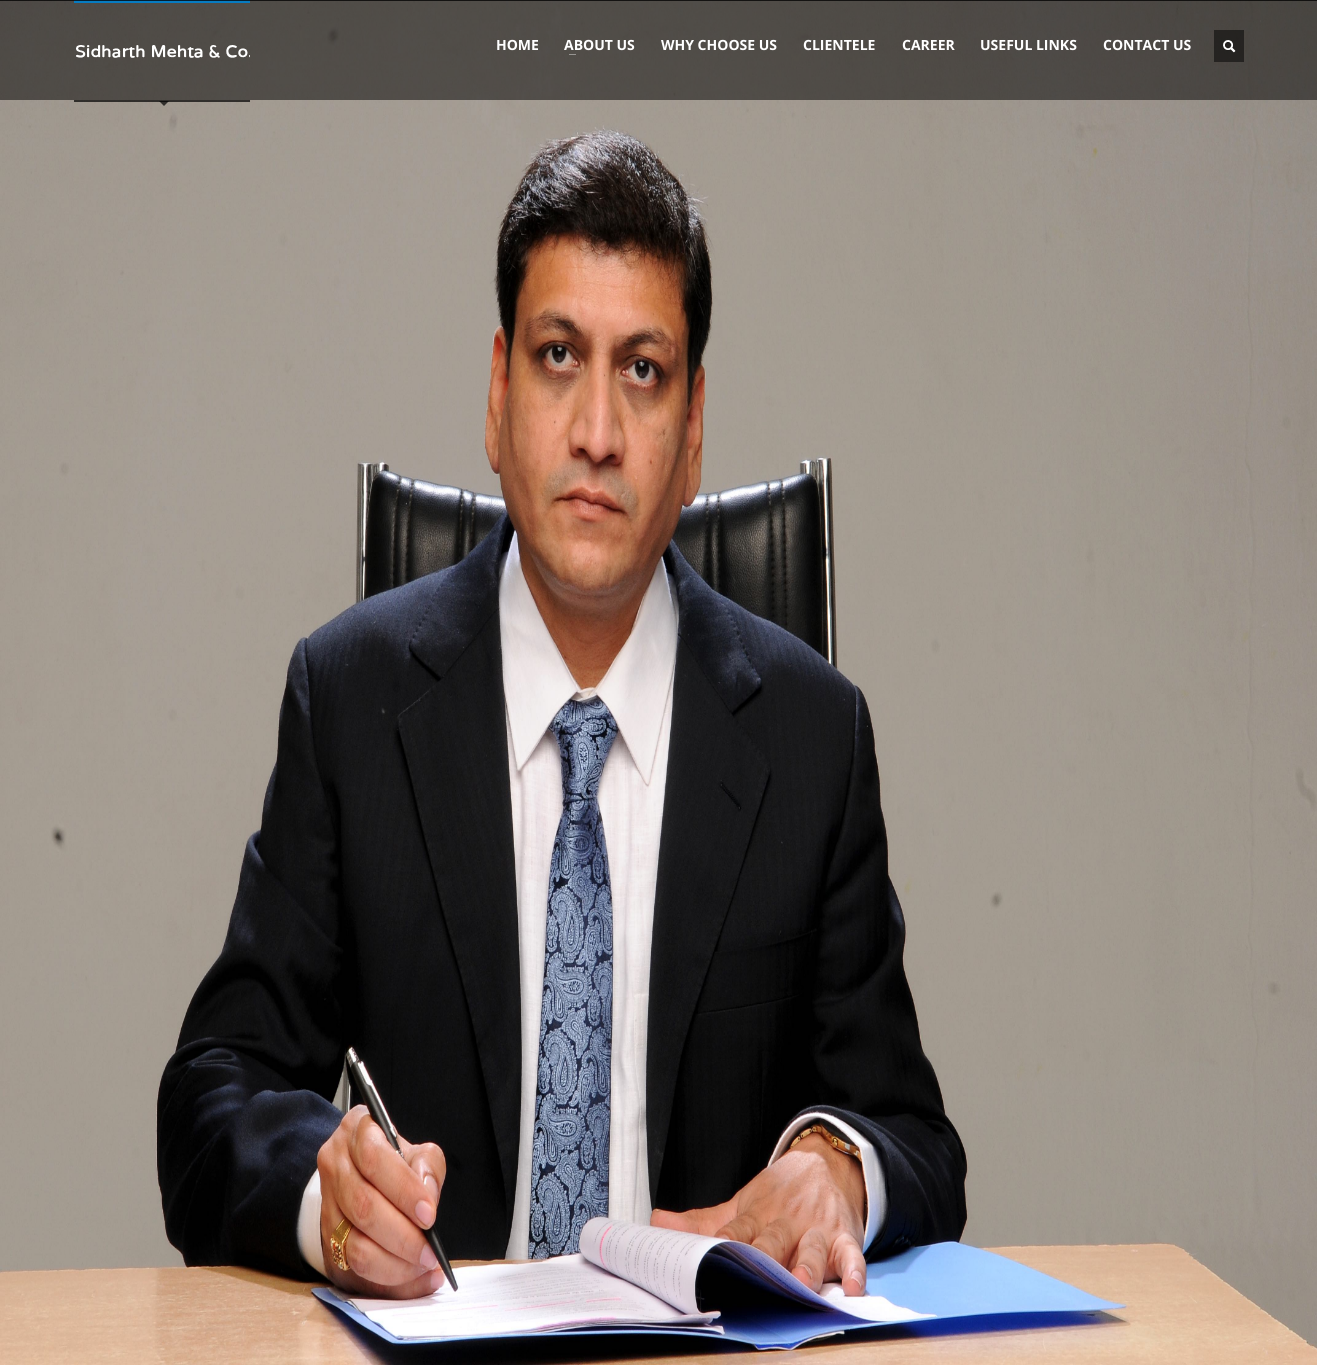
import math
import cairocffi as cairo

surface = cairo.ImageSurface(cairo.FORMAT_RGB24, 1317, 1365)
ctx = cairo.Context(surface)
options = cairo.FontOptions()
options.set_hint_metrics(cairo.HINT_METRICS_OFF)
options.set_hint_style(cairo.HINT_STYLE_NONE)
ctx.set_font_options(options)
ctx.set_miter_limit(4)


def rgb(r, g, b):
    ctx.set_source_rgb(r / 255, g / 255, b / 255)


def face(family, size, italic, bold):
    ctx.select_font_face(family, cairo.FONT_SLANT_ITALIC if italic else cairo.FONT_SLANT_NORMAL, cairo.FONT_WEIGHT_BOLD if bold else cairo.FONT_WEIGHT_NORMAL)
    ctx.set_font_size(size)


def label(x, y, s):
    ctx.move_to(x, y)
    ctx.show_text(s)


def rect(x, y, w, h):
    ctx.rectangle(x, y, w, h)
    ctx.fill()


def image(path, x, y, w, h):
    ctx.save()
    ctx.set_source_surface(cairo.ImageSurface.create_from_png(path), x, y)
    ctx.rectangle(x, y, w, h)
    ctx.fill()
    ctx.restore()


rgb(255, 255, 255)
ctx.paint()
image('image0.png', 0, 0, 1317, 1365)
ctx.set_source_rgba(0, 0, 0, 0.5)
rect(0, 0, 1317, 100)
rgb(7, 124, 194)
rect(74, 0, 176, 3)
ctx.set_source_rgba(0, 0, 0, 0.75)
rect(0, 0, 1317, 1)
ctx.set_source_rgba(0, 0, 0, 0.7)
rect(74, 100, 176, 2)
image('image1.png', 76, 45, 174, 13)
ctx.new_path()
ctx.move_to(159, 101)
ctx.line_to(169, 101)
ctx.line_to(164, 106)
ctx.close_path()
ctx.fill()
face('Open Sans', 14, 0, 1)
rgb(255, 255, 255)
label(496, 50, 'HOME')
label(564, 50, 'ABOUT US')
rgb(151, 149, 146)
rect(569, 54, 7, 1)
rgb(255, 255, 255)
label(661, 50, 'WHY CHOOSE US')
label(803, 50, 'CLIENTELE')
label(902, 50, 'CAREER')
label(980, 50, 'USEFUL LINKS')
label(1103, 50, 'CONTACT US')
ctx.set_source_rgba(0, 0, 0, 0.5)
rect(1214, 30, 30, 32)
image('image2.png', 1223, 40, 13, 13)
surface.write_to_png('render.png')
